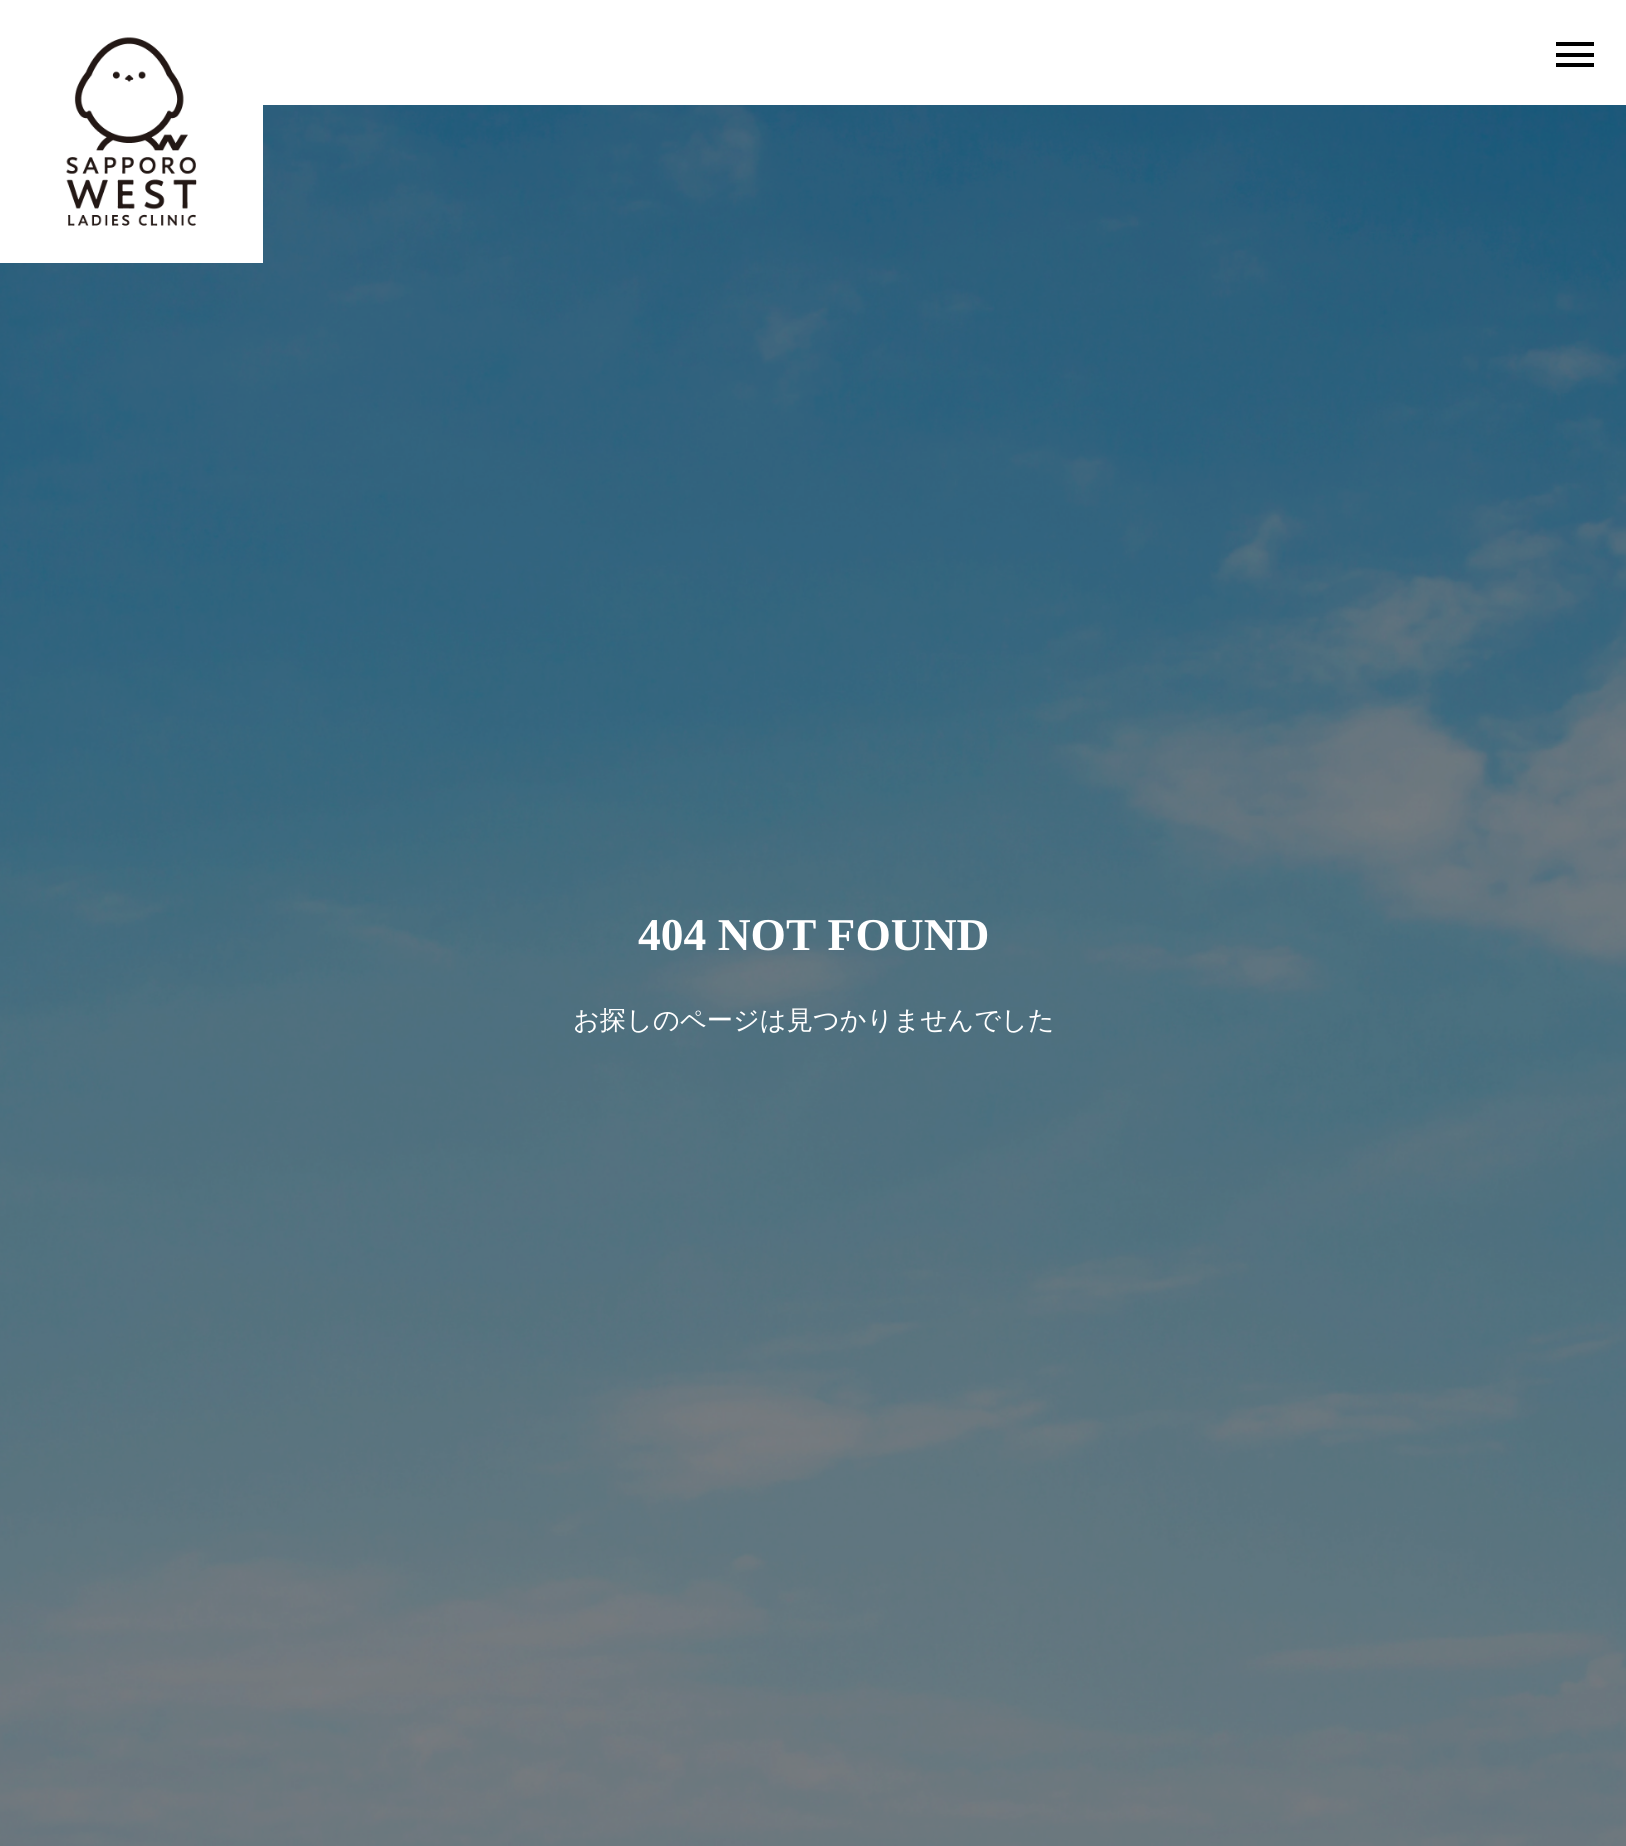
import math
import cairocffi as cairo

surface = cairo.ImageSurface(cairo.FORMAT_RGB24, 1626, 1846)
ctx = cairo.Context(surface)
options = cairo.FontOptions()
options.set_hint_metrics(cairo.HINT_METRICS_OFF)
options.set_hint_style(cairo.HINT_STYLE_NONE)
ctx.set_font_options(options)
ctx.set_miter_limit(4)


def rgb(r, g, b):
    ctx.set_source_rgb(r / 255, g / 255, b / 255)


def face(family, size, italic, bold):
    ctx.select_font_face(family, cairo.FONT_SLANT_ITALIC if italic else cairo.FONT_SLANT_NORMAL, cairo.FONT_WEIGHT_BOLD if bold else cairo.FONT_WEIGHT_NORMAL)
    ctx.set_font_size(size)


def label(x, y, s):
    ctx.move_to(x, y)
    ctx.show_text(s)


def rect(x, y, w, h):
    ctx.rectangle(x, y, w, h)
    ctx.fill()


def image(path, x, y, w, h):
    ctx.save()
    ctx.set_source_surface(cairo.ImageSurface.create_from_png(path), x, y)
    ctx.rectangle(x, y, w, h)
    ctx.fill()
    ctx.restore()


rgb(255, 255, 255)
ctx.paint()
image('image1.png', 0, 105, 1626, 1741)
rgb(255, 255, 255)
rect(0, 105, 263, 158)
image('image0.png', 66, 37, 131, 189)
rgb(0, 0, 0)
rect(1556, 42, 38, 4)
rect(1556, 53, 38, 4)
rect(1556, 63, 38, 4)
face('Liberation Serif', 45.5, 0, 1)
rgb(255, 255, 255)
label(638, 950, '404 NOT FOUND')
face('WenQuanYi Zen Hei Medium', 26.25, 0, 0)
label(573, 1029, 'お探しのページは見つかりませんでした')
surface.write_to_png('render.png')
